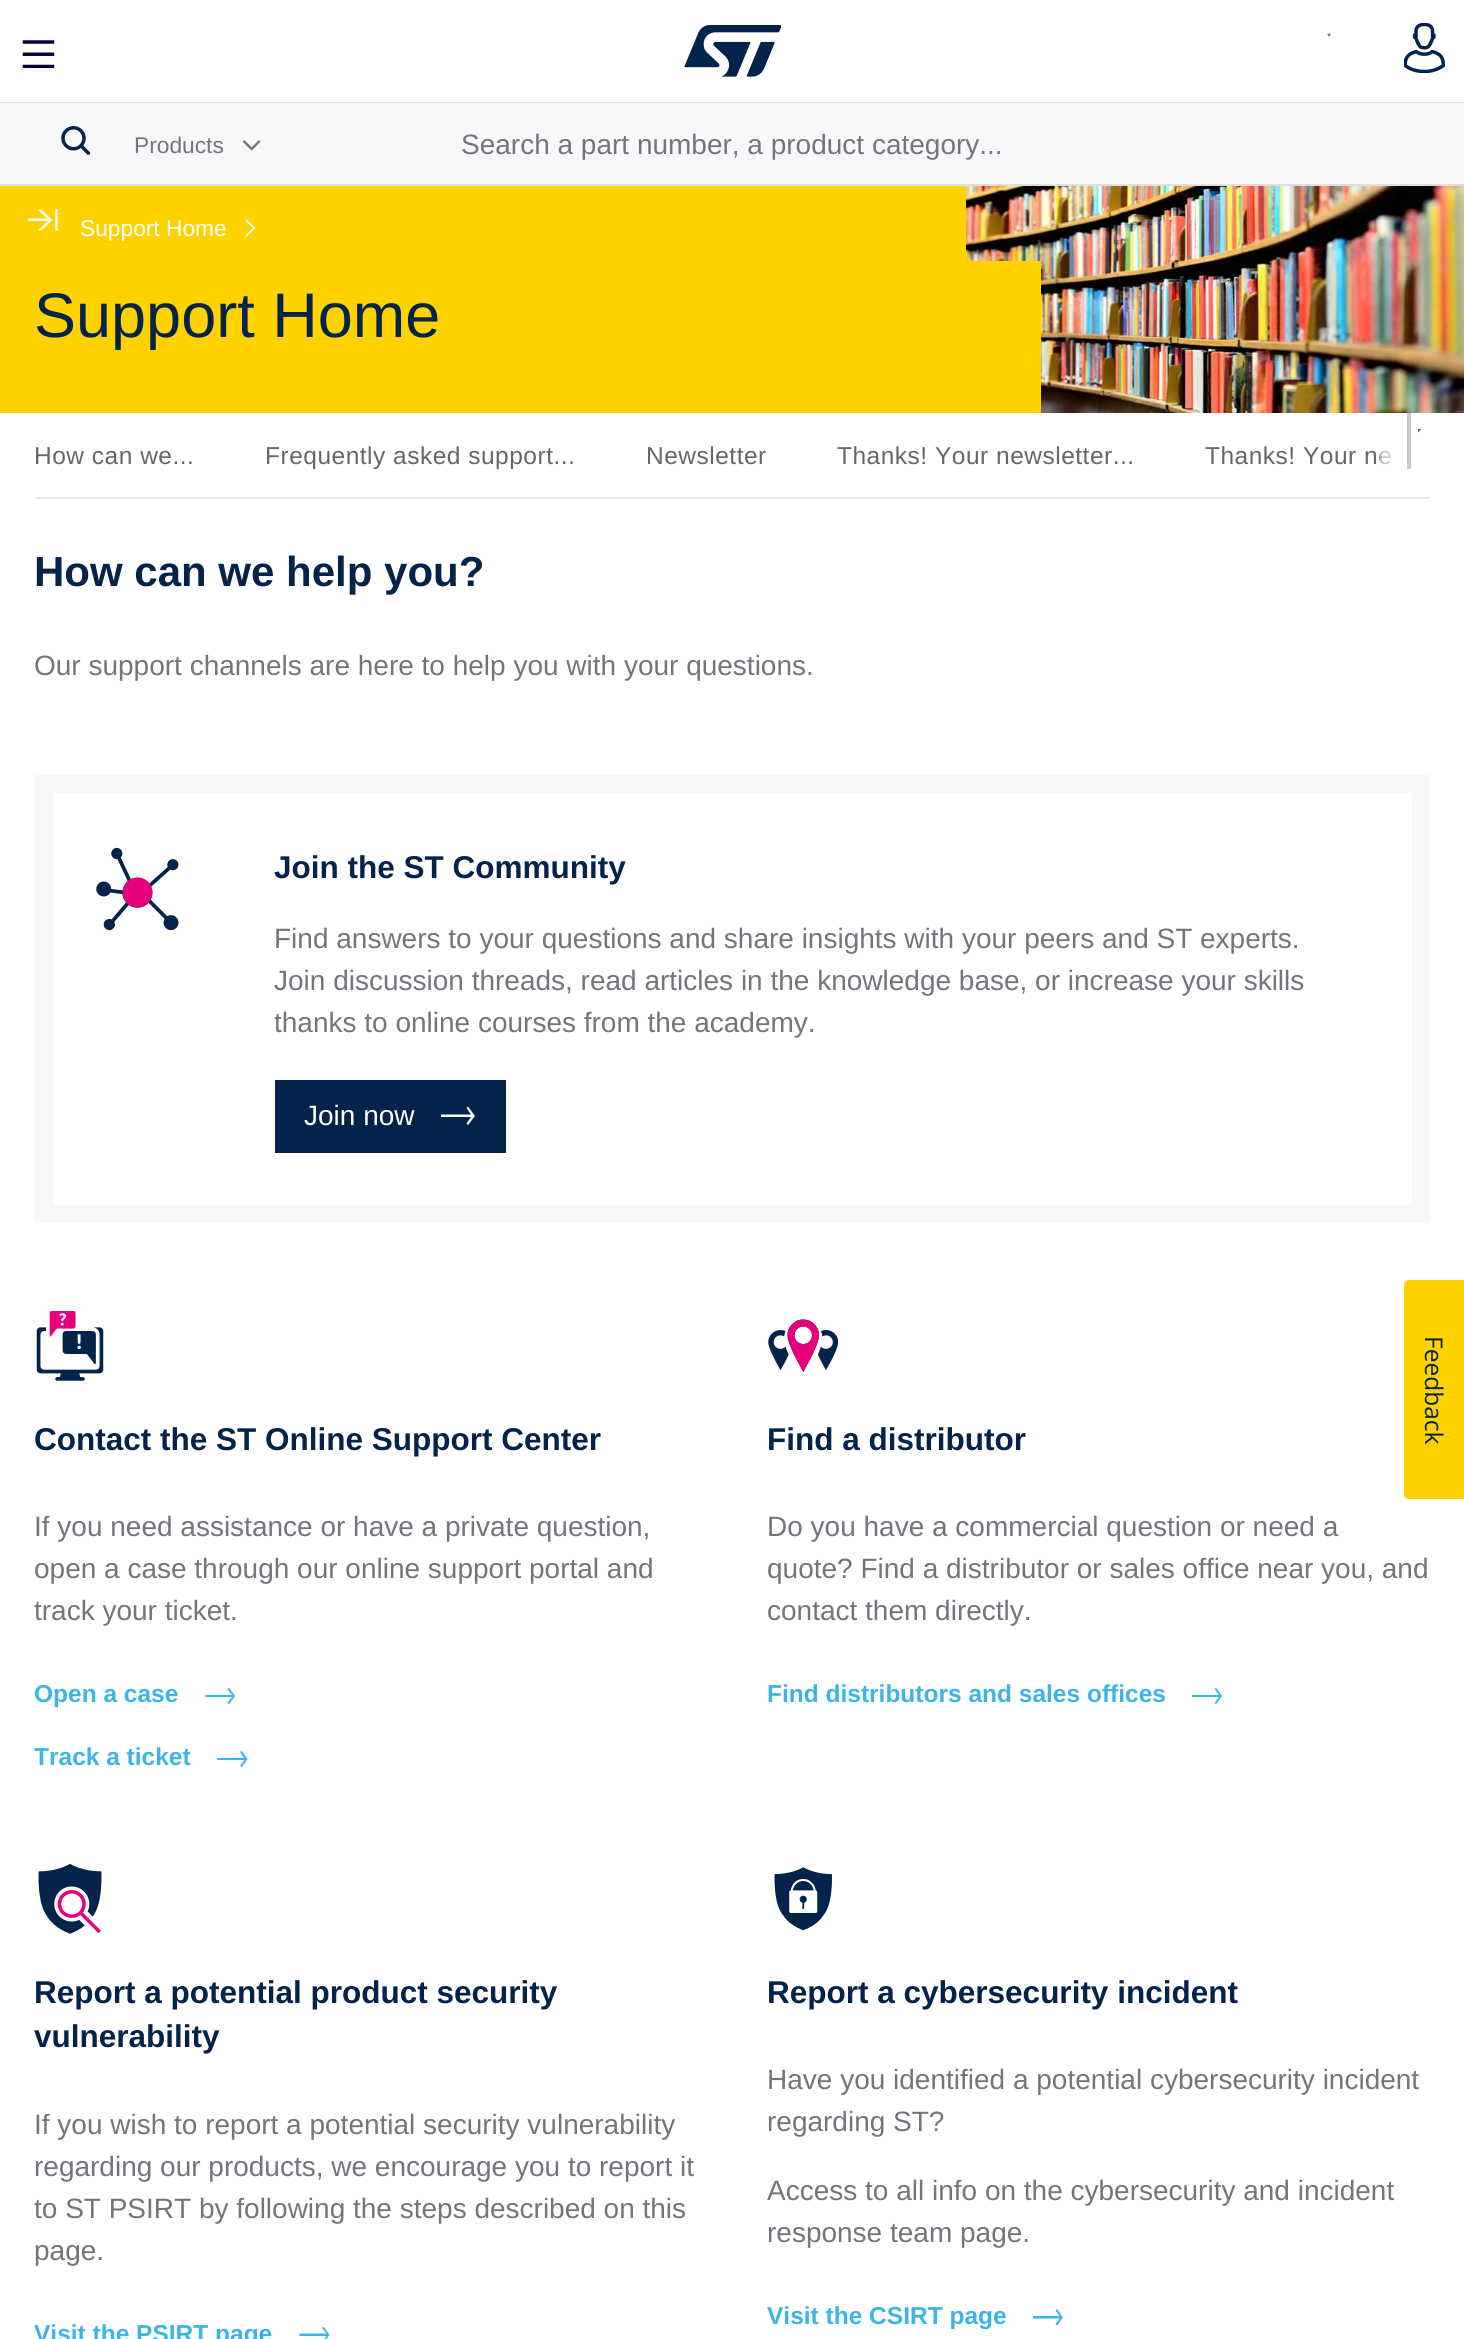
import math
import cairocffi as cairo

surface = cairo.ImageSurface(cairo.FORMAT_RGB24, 1464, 2339)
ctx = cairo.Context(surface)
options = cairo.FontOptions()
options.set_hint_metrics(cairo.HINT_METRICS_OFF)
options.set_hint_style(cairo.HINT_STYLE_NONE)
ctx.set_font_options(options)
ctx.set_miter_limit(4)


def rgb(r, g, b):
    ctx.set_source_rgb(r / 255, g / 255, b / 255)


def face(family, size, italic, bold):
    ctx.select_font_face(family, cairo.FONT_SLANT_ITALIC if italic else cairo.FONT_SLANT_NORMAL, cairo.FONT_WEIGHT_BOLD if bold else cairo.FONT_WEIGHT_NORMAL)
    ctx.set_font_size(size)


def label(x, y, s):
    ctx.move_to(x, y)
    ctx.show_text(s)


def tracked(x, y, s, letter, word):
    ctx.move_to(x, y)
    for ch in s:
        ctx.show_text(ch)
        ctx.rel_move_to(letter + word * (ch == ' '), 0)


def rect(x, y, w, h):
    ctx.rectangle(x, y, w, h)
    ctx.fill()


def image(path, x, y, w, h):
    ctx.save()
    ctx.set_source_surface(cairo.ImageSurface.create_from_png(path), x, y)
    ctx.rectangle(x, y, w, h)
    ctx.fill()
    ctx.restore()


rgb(255, 255, 255)
ctx.paint()
image('image0.png', 22, 40, 33, 28)
image('image1.png', 684, 25, 97, 52)
image('image2.png', 1327, 33, 4, 4)
image('image3.png', 1404, 23, 41, 50)
rgb(223, 223, 223)
rect(0, 102, 1464, 1)
rect(0, 184, 1464, 2)
rgb(247, 248, 250)
rect(0, 103, 1464, 81)
image('image4.png', 61, 126, 30, 29)
face('Liberation Sans', 22.75, 0, 0)
rgb(116, 117, 124)
label(134, 153, 'Products')
image('image5.png', 242, 140, 19, 11)
face('Liberation Sans', 28, 0, 0)
label(461, 154, 'Search a part number, a product category...')
rgb(255, 210, 0)
rect(0, 186, 966, 227)
image('image6.png', 966, 186, 498, 227)
rect(966, 261, 75, 152)
image('image7.png', 28, 208, 30, 23)
face('Liberation Sans', 22.75, 0, 0)
rgb(255, 255, 255)
label(80, 236, 'Support Home')
ctx.new_path()
ctx.move_to(253, 228)
ctx.line_to(245, 236)
ctx.line_to(246, 237)
ctx.line_to(255.5, 228)
ctx.line_to(246.5, 219.5)
ctx.line_to(245, 220.5)
ctx.close_path()
ctx.fill()
face('Liberation Sans', 63, 0, 0)
rgb(3, 35, 75)
label(34, 337, 'Support Home')
rgb(230, 230, 230)
rect(35, 497, 1395, 2)
face('Liberation Sans', 24.5, 0, 0)
rgb(102, 102, 102)
tracked(34, 464, 'How can we...', 0.5, 0)
tracked(265, 464, 'Frequently asked support...', 0.5, 0)
tracked(646, 464, 'Newsletter', 0.5, 0)
tracked(837, 464, 'Thanks! Your newsletter...', 0.5, 0)
tracked(1205, 464, 'Thanks! Your ne', 0.5, 0)
rgb(204, 204, 204)
rect(1407, 413, 4, 56)
image('image8.png', 1418, 429, 4, 4)
gradient = cairo.LinearGradient(1379, 441, 1407, 441)
gradient.add_color_stop_rgba(0, 1, 1, 1, 0.5)
gradient.add_color_stop_rgba(1, 1, 1, 1, 1)
ctx.set_source(gradient)
rect(1380, 450, 12, 15)
face('Liberation Sans', 42, 0, 1)
rgb(3, 35, 75)
label(34, 586, 'How can we help you?')
face('Liberation Sans', 28, 0, 0)
rgb(116, 117, 124)
label(34, 675, 'Our support channels are here to help you with your questions.')
ctx.rectangle(44, 784, 1377, 430)
rgb(248, 248, 248)
ctx.set_line_width(18)
ctx.stroke()
image('image9.png', 96, 847, 83, 84)
face('Liberation Sans', 31.5, 0, 1)
rgb(3, 35, 75)
label(274, 878, 'Join the ST Community')
face('Liberation Sans', 28, 0, 0)
rgb(116, 117, 124)
label(274, 948, 'Find answers to your questions and share insights with your peers and ST experts.')
label(274, 990, 'Join discussion threads, read articles in the knowledge base, or increase your skills')
label(274, 1032, 'thanks to online courses from the academy.')
rgb(3, 35, 75)
rect(275, 1080, 231, 73)
rgb(255, 255, 255)
label(304, 1125, 'Join now')
ctx.set_fill_rule(cairo.FILL_RULE_EVEN_ODD)
ctx.new_path()
ctx.move_to(468, 1125)
ctx.line_to(475, 1116)
ctx.line_to(468, 1106.5)
ctx.line_to(466.5, 1108)
ctx.line_to(471, 1114.5)
ctx.line_to(441, 1114.5)
ctx.line_to(441, 1117)
ctx.line_to(471, 1117)
ctx.line_to(466.5, 1123.5)
ctx.close_path()
ctx.fill()
image('image10.png', 36, 1311, 68, 70)
face('Liberation Sans', 31.5, 0, 1)
rgb(3, 35, 75)
label(34, 1450, 'Contact the ST Online Support Center')
face('Liberation Sans', 28, 0, 0)
rgb(116, 117, 124)
label(34, 1536, 'If you need assistance or have a private question,')
label(34, 1578, 'open a case through our online support portal and')
label(34, 1620, 'track your ticket.')
face('Liberation Sans', 24.5, 0, 1)
rgb(60, 180, 230)
label(34, 1702, 'Open a case')
ctx.new_path()
ctx.move_to(229, 1704.5)
ctx.line_to(235, 1696)
ctx.line_to(229, 1687.5)
ctx.line_to(227.5, 1689)
ctx.line_to(232, 1695)
ctx.line_to(205, 1695)
ctx.line_to(205, 1697)
ctx.line_to(232, 1697)
ctx.line_to(227.5, 1703)
ctx.close_path()
ctx.fill()
label(34, 1765, 'Track a ticket')
ctx.new_path()
ctx.move_to(241.5, 1767.5)
ctx.line_to(247.5, 1759)
ctx.line_to(241.5, 1750.5)
ctx.line_to(240, 1752)
ctx.line_to(244, 1758)
ctx.line_to(217, 1758)
ctx.line_to(217, 1760)
ctx.line_to(244, 1760)
ctx.line_to(240, 1766)
ctx.close_path()
ctx.fill()
image('image11.png', 768, 1319, 70, 53)
face('Liberation Sans', 31.5, 0, 1)
rgb(3, 35, 75)
label(767, 1450, 'Find a distributor')
face('Liberation Sans', 28, 0, 0)
rgb(116, 117, 124)
label(767, 1536, 'Do you have a commercial question or need a')
label(767, 1578, 'quote? Find a distributor or sales office near you, and')
label(767, 1620, 'contact them directly.')
face('Liberation Sans', 24.5, 0, 1)
rgb(60, 180, 230)
label(767, 1702, 'Find distributors and sales offices')
ctx.new_path()
ctx.move_to(1216, 1704.5)
ctx.line_to(1222, 1696)
ctx.line_to(1216, 1687.5)
ctx.line_to(1214.5, 1689)
ctx.line_to(1219, 1695)
ctx.line_to(1192, 1695)
ctx.line_to(1192, 1697)
ctx.line_to(1219, 1697)
ctx.line_to(1214.5, 1703)
ctx.close_path()
ctx.fill()
image('image12.png', 38, 1864, 64, 70)
face('Liberation Sans', 31.5, 0, 1)
rgb(3, 35, 75)
label(34, 2003, 'Report a potential product security')
label(34, 2047, 'vulnerability')
face('Liberation Sans', 28, 0, 0)
rgb(116, 117, 124)
label(34, 2134, 'If you wish to report a potential security vulnerability')
label(34, 2176, 'regarding our products, we encourage you to report it')
label(34, 2218, 'to ST PSIRT by following the steps described on this')
label(34, 2260, 'page.')
face('Liberation Sans', 24.5, 0, 1)
rgb(60, 180, 230)
label(34, 2342, 'Visit the PSIRT page')
ctx.new_path()
ctx.move_to(323.5, 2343)
ctx.line_to(329.5, 2335)
ctx.line_to(323.5, 2326.5)
ctx.line_to(322, 2328)
ctx.line_to(326.5, 2333.5)
ctx.line_to(299.5, 2333.5)
ctx.line_to(299.5, 2336)
ctx.line_to(326.5, 2336)
ctx.line_to(322, 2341.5)
ctx.close_path()
ctx.fill()
image('image13.png', 774, 1867, 58, 64)
face('Liberation Sans', 31.5, 0, 1)
rgb(3, 35, 75)
label(767, 2003, 'Report a cybersecurity incident')
face('Liberation Sans', 28, 0, 0)
rgb(116, 117, 124)
label(767, 2089, 'Have you identified a potential cybersecurity incident')
label(767, 2131, 'regarding ST?')
label(767, 2200, 'Access to all info on the cybersecurity and incident')
label(767, 2242, 'response team page.')
face('Liberation Sans', 24.5, 0, 1)
rgb(60, 180, 230)
label(767, 2324, 'Visit the CSIRT page')
ctx.save()
ctx.set_fill_rule(cairo.FILL_RULE_WINDING)
ctx.rectangle(1033, 2298, 31, 40)
ctx.clip()
ctx.set_fill_rule(cairo.FILL_RULE_EVEN_ODD)
ctx.new_path()
ctx.move_to(1057, 2325.5)
ctx.line_to(1063, 2317.5)
ctx.line_to(1057, 2309)
ctx.line_to(1055.5, 2310.5)
ctx.line_to(1059.5, 2316)
ctx.line_to(1032.5, 2316)
ctx.line_to(1032.5, 2318.5)
ctx.line_to(1059.5, 2318.5)
ctx.line_to(1055.5, 2324)
ctx.close_path()
ctx.fill()
ctx.restore()
rgb(255, 210, 0)
ctx.set_fill_rule(cairo.FILL_RULE_WINDING)
ctx.new_path()
ctx.move_to(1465, 1280)
ctx.line_to(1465, 1499)
ctx.line_to(1409, 1499)
ctx.curve_to(1406, 1499, 1404, 1497, 1404, 1494)
ctx.line_to(1404, 1286)
ctx.curve_to(1404, 1283, 1406, 1280, 1409, 1280)
ctx.close_path()
ctx.fill()
face('Open Sans', 24.5, 0, 0)
rgb(3, 35, 75)
ctx.save()
ctx.translate(1425, 1336)
ctx.rotate(90 * math.pi / 180)
label(0, 0, 'Feedback')
ctx.restore()
surface.write_to_png('render.png')
